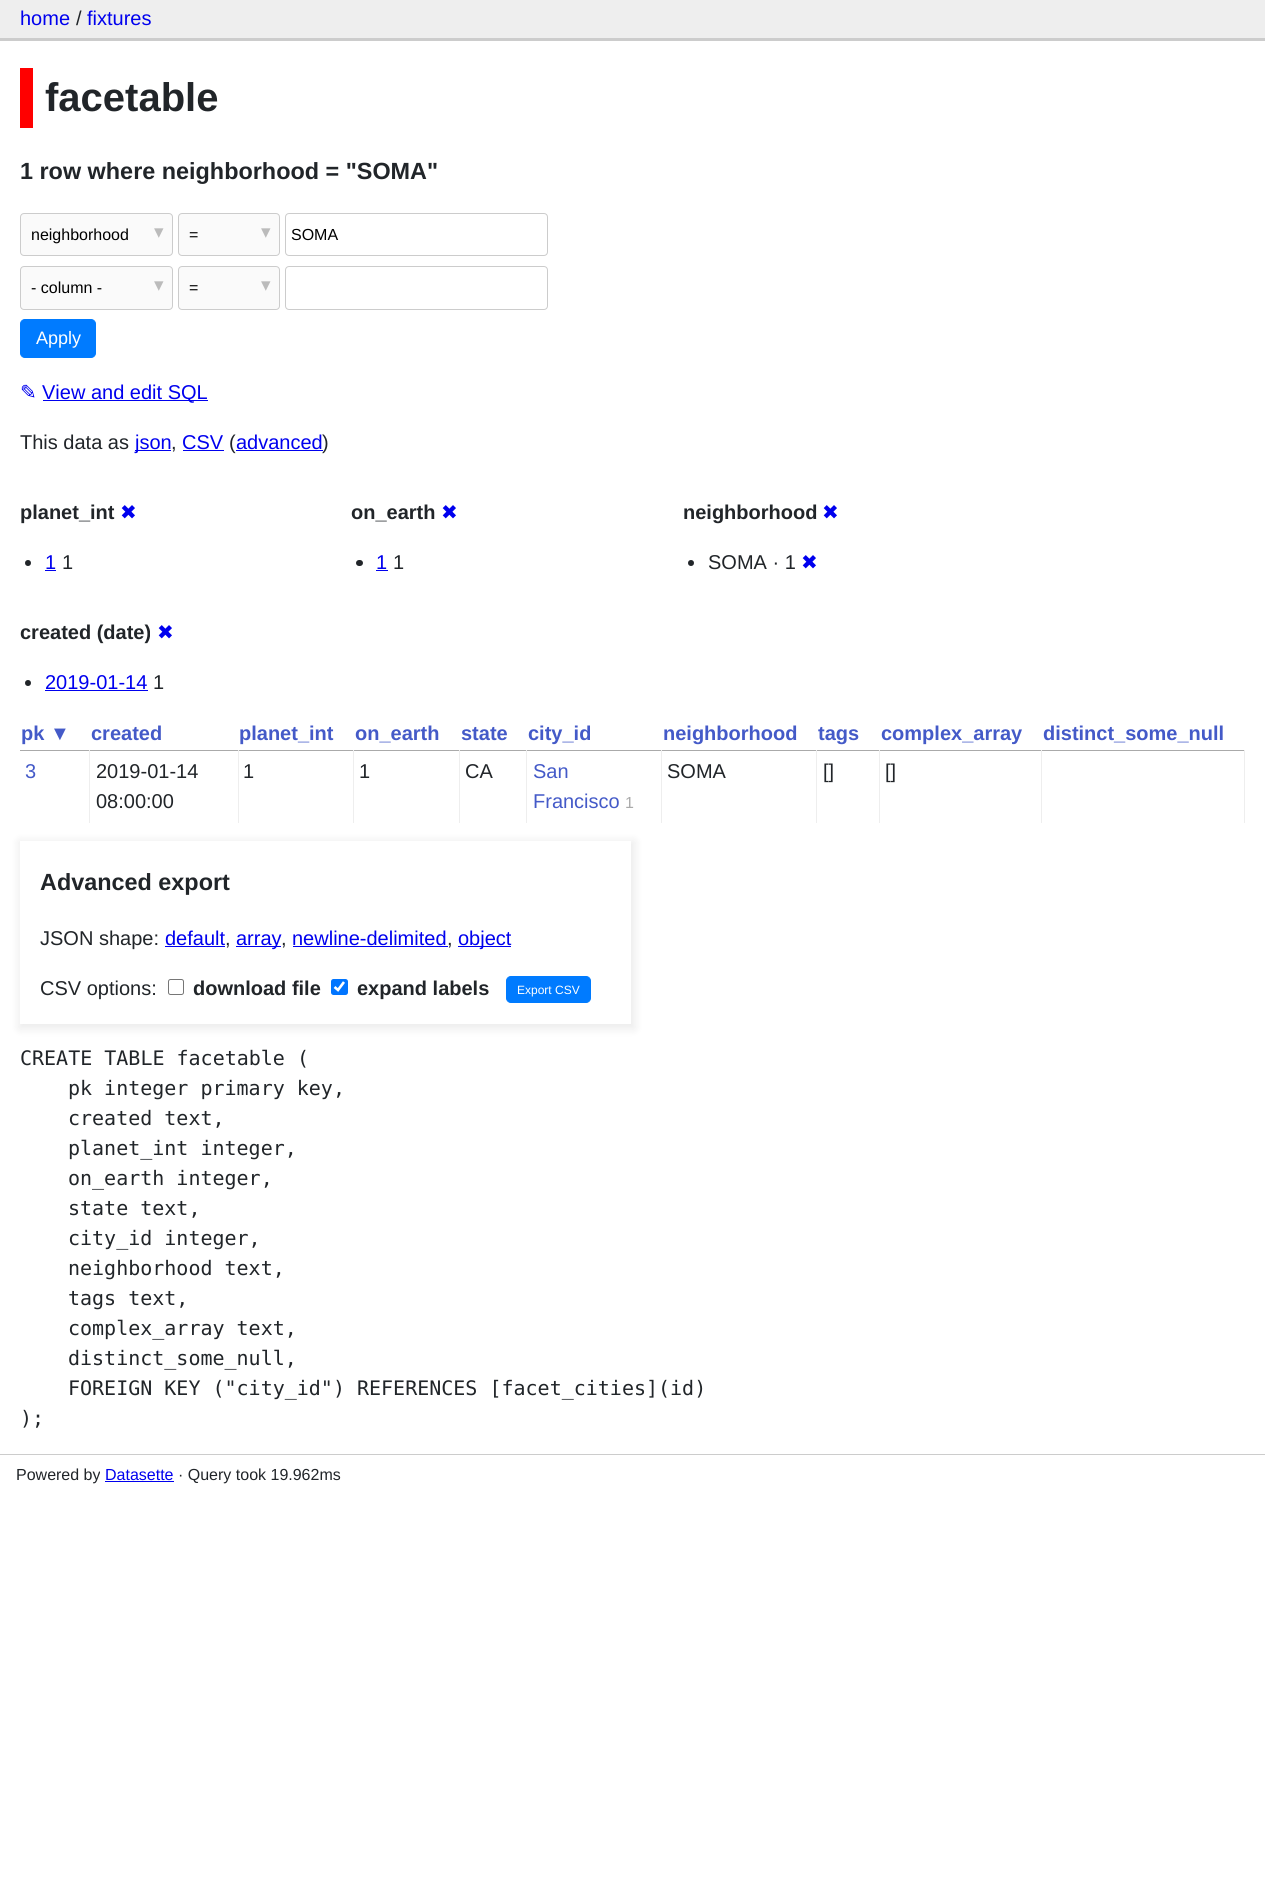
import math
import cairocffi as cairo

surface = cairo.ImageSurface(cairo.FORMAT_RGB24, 1265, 1877)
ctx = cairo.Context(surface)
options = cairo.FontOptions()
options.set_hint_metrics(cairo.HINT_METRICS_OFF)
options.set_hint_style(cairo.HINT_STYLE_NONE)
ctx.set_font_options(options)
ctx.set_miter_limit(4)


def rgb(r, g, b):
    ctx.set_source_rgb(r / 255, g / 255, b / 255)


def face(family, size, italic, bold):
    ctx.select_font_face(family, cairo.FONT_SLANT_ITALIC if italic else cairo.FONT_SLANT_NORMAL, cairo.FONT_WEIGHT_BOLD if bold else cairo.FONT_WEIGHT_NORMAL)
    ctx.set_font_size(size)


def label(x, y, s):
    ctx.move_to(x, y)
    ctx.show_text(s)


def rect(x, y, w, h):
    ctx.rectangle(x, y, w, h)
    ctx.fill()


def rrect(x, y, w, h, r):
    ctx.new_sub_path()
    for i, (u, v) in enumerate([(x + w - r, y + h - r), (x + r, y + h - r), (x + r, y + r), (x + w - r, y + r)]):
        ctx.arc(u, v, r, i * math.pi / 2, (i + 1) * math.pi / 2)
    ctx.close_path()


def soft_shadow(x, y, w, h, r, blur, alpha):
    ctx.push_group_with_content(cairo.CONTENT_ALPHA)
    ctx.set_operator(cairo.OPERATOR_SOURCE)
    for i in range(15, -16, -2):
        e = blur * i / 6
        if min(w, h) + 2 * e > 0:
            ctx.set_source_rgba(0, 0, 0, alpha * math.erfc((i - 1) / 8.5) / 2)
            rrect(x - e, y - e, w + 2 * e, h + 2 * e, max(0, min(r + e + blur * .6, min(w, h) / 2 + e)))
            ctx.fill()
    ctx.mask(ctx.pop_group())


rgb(255, 255, 255)
ctx.paint()
rgb(238, 238, 238)
rect(0, 0, 1265, 38)
rgb(204, 204, 204)
rect(0, 38, 1265, 3)
face('Liberation Sans', 20, 0, 0)
rgb(0, 0, 238)
label(20, 25, 'home')
rgb(33, 37, 41)
label(76, 25, '/')
rgb(0, 0, 238)
label(87, 25, 'fixtures')
rgb(255, 0, 0)
rect(20, 68, 13, 60)
face('Liberation Sans', 40, 0, 1)
rgb(33, 37, 41)
label(45, 111, 'facetable')
face('Liberation Sans', 23.4, 0, 1)
label(20, 179, '1 row where neighborhood = "SOMA"')
rgb(250, 250, 250)
rrect(20.5, 213.5, 152, 42, 3.5)
ctx.fill_preserve()
rgb(204, 204, 204)
ctx.set_line_width(1)
ctx.stroke()
face('Liberation Sans', 16, 0, 0)
rgb(0, 0, 0)
label(31, 240, 'neighborhood')
face('DejaVu Sans', 19, 0, 0)
rgb(187, 187, 187)
label(154, 238, '▾')
rgb(250, 250, 250)
rrect(178.5, 213.5, 101, 42, 3.5)
ctx.fill_preserve()
rgb(204, 204, 204)
ctx.stroke()
face('Liberation Sans', 16, 0, 0)
rgb(0, 0, 0)
label(189, 240, '=')
face('DejaVu Sans', 19, 0, 0)
rgb(187, 187, 187)
label(261, 238, '▾')
rrect(285.5, 213.5, 262, 42, 3.5)
rgb(204, 204, 204)
ctx.stroke()
face('Liberation Sans', 16, 0, 0)
rgb(0, 0, 0)
label(291, 240, 'SOMA')
rgb(250, 250, 250)
rrect(20.5, 266.5, 152, 43, 3.5)
ctx.fill_preserve()
rgb(204, 204, 204)
ctx.stroke()
rgb(0, 0, 0)
label(31, 293, '- column -')
face('DejaVu Sans', 19, 0, 0)
rgb(187, 187, 187)
label(154, 291, '▾')
rgb(250, 250, 250)
rrect(178.5, 266.5, 101, 43, 3.5)
ctx.fill_preserve()
rgb(204, 204, 204)
ctx.stroke()
face('Liberation Sans', 16, 0, 0)
rgb(0, 0, 0)
label(189, 293, '=')
face('DejaVu Sans', 19, 0, 0)
rgb(187, 187, 187)
label(261, 291, '▾')
rrect(285.5, 266.5, 262, 43, 3.5)
rgb(204, 204, 204)
ctx.stroke()
rgb(0, 123, 255)
rrect(20.5, 319.5, 75, 38, 4.5)
ctx.fill_preserve()
ctx.stroke()
face('Liberation Sans', 18, 0, 0)
rgb(255, 255, 255)
label(36, 344, 'Apply')
face('DejaVu Sans', 20, 0, 0)
rgb(0, 0, 238)
label(20, 399, '✎')
rect(43, 400, 165, 1)
face('Liberation Sans', 20, 0, 0)
label(42, 399, 'View and edit SQL')
rgb(33, 37, 41)
label(20, 449, 'This data as')
rgb(0, 0, 238)
rect(135, 450, 36, 1)
label(135, 449, 'json')
rgb(33, 37, 41)
label(171, 449, ',')
rgb(0, 0, 238)
label(182, 449, 'CSV')
rect(183, 450, 41, 1)
rgb(33, 37, 41)
label(229, 449, '(')
rgb(0, 0, 238)
label(236, 449, 'advanced')
rect(236, 450, 87, 1)
rgb(33, 37, 41)
label(322, 449, ')')
face('Liberation Sans', 20, 0, 1)
label(20, 519, 'planet_int')
face('DejaVu Sans', 20, 0, 0)
rgb(0, 0, 238)
label(120, 519, '✖')
rgb(33, 37, 41)
ctx.new_path()
ctx.arc(28, 563, 3, 0, 2 * math.pi)
ctx.fill()
face('Liberation Sans', 20, 0, 0)
rgb(0, 0, 238)
label(45, 569, '1')
rect(45, 570, 11, 1)
rgb(33, 37, 41)
label(62, 569, '1')
face('Liberation Sans', 20, 0, 1)
label(351, 519, 'on_earth')
face('DejaVu Sans', 20, 0, 0)
rgb(0, 0, 238)
label(441, 519, '✖')
rgb(33, 37, 41)
rrect(356, 560, 7, 6, 3)
ctx.fill()
face('Liberation Sans', 20, 0, 0)
rgb(0, 0, 238)
label(376, 569, '1')
rect(376, 570, 12, 1)
rgb(33, 37, 41)
label(393, 569, '1')
face('Liberation Sans', 20, 0, 1)
label(683, 519, 'neighborhood')
face('DejaVu Sans', 20, 0, 0)
rgb(0, 0, 238)
label(822, 519, '✖')
rgb(33, 37, 41)
ctx.new_path()
ctx.arc(691, 563, 3, 0, 2 * math.pi)
ctx.fill()
face('Liberation Sans', 20, 0, 0)
label(708, 569, 'SOMA · 1')
face('DejaVu Sans', 20, 0, 0)
rgb(0, 0, 238)
label(801, 569, '✖')
face('Liberation Sans', 20, 0, 1)
rgb(33, 37, 41)
label(20, 639, 'created (date)')
face('DejaVu Sans', 20, 0, 0)
rgb(0, 0, 238)
label(157, 639, '✖')
rgb(33, 37, 41)
ctx.new_path()
ctx.arc(28, 683, 3, 0, 2 * math.pi)
ctx.fill()
face('Liberation Sans', 20, 0, 0)
rgb(0, 0, 238)
label(45, 689, '2019-01-14')
rect(45, 690, 103, 1)
rgb(33, 37, 41)
label(153, 689, '1')
face('Liberation Sans', 20, 0, 1)
rgb(68, 90, 200)
label(21, 740, 'pk ▼')
label(91, 740, 'created')
label(239, 740, 'planet_int')
label(355, 740, 'on_earth')
label(461, 740, 'state')
label(528, 740, 'city_id')
label(663, 740, 'neighborhood')
label(818, 740, 'tags')
label(881, 740, 'complex_array')
label(1043, 740, 'distinct_some_null')
rgb(170, 170, 170)
rect(20, 750, 1225, 1)
rgb(238, 238, 238)
rect(1244, 750, 1, 73)
rect(89, 750, 1, 73)
face('Liberation Sans', 20, 0, 0)
rgb(68, 90, 200)
label(25, 778, '3')
rgb(238, 238, 238)
rect(238, 750, 1, 73)
rgb(33, 37, 41)
label(96, 778, '2019-01-14')
label(96, 808, '08:00:00')
rgb(238, 238, 238)
rect(353, 750, 1, 73)
rgb(33, 37, 41)
label(243, 778, '1')
rgb(238, 238, 238)
rect(459, 750, 1, 73)
rgb(33, 37, 41)
label(359, 778, '1')
rgb(238, 238, 238)
rect(526, 750, 1, 73)
rgb(33, 37, 41)
label(465, 778, 'CA')
rgb(238, 238, 238)
rect(661, 750, 1, 73)
rgb(68, 90, 200)
label(533, 778, 'San')
label(533, 808, 'Francisco')
face('Liberation Sans', 16, 0, 0)
rgb(170, 170, 170)
label(625, 808, '1')
rgb(238, 238, 238)
rect(816, 750, 1, 73)
face('Liberation Sans', 20, 0, 0)
rgb(33, 37, 41)
label(667, 778, 'SOMA')
rgb(238, 238, 238)
rect(879, 750, 1, 73)
rgb(33, 37, 41)
label(823, 778, '[]')
rgb(238, 238, 238)
rect(1041, 750, 1, 73)
rgb(33, 37, 41)
label(885, 778, '[]')
ctx.save()
ctx.set_fill_rule(cairo.FILL_RULE_EVEN_ODD)
ctx.new_path()
ctx.move_to(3, 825)
ctx.line_to(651, 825)
ctx.line_to(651, 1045)
ctx.line_to(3, 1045)
ctx.close_path()
ctx.move_to(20, 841)
ctx.line_to(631, 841)
ctx.line_to(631, 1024)
ctx.line_to(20, 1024)
ctx.close_path()
ctx.clip()
rgb(0, 0, 0)
soft_shadow(19, 841, 616, 188, 0, 5, 0.08)
ctx.restore()
face('Liberation Sans', 23.4, 0, 1)
label(40, 890, 'Advanced export')
face('Liberation Sans', 20, 0, 0)
label(40, 945, 'JSON shape:')
rgb(0, 0, 238)
label(165, 945, 'default')
rect(165, 946, 60, 1)
rgb(33, 37, 41)
label(225, 945, ',')
rgb(0, 0, 238)
rect(236, 946, 45, 1)
label(236, 945, 'array')
rgb(33, 37, 41)
label(281, 945, ',')
rgb(0, 0, 238)
label(292, 945, 'newline-delimited')
rect(293, 946, 155, 1)
rgb(33, 37, 41)
label(447, 945, ',')
rgb(0, 0, 238)
rect(458, 946, 53, 1)
label(458, 945, 'object')
rgb(33, 37, 41)
label(40, 995, 'CSV options:')
rrect(168.5, 979.5, 15, 15, 2)
rgb(118, 118, 118)
ctx.stroke()
face('Liberation Sans', 20, 0, 1)
rgb(33, 37, 41)
label(193, 995, 'download file')
rgb(0, 117, 255)
rrect(331, 979, 17, 16, 2.5)
ctx.fill()
ctx.new_path()
ctx.move_to(334.5, 987)
ctx.line_to(338, 990)
ctx.line_to(344, 982)
rgb(255, 255, 255)
ctx.set_line_width(2.6)
ctx.stroke()
rgb(33, 37, 41)
label(357, 995, 'expand labels')
rgb(0, 123, 255)
rrect(506.5, 976.5, 84, 26, 4.5)
ctx.fill_preserve()
ctx.set_line_width(1)
ctx.stroke()
face('Liberation Sans', 12, 0, 0)
rgb(255, 255, 255)
label(517, 994, 'Export CSV')
face('DejaVu Sans Mono', 20, 0, 0)
rgb(33, 37, 41)
label(20, 1065, 'CREATE TABLE facetable (')
label(68, 1095, 'pk integer primary key,')
label(68, 1125, 'created text,')
label(68, 1155, 'planet_int integer,')
label(68, 1185, 'on_earth integer,')
label(68, 1215, 'state text,')
label(68, 1245, 'city_id integer,')
label(68, 1275, 'neighborhood text,')
label(68, 1305, 'tags text,')
label(68, 1335, 'complex_array text,')
label(68, 1365, 'distinct_some_null,')
label(68, 1395, 'FOREIGN KEY ("city_id") REFERENCES [facet_cities](id)')
label(20, 1425, ');')
rgb(204, 204, 204)
rect(0, 1454, 1265, 1)
face('Liberation Sans', 16, 0, 0)
rgb(33, 37, 41)
label(16, 1480, 'Powered by')
rgb(0, 0, 238)
label(105, 1480, 'Datasette')
rect(105, 1481, 69, 1)
rgb(33, 37, 41)
label(178, 1480, '· Query took 19.962ms')
surface.write_to_png('render.png')
